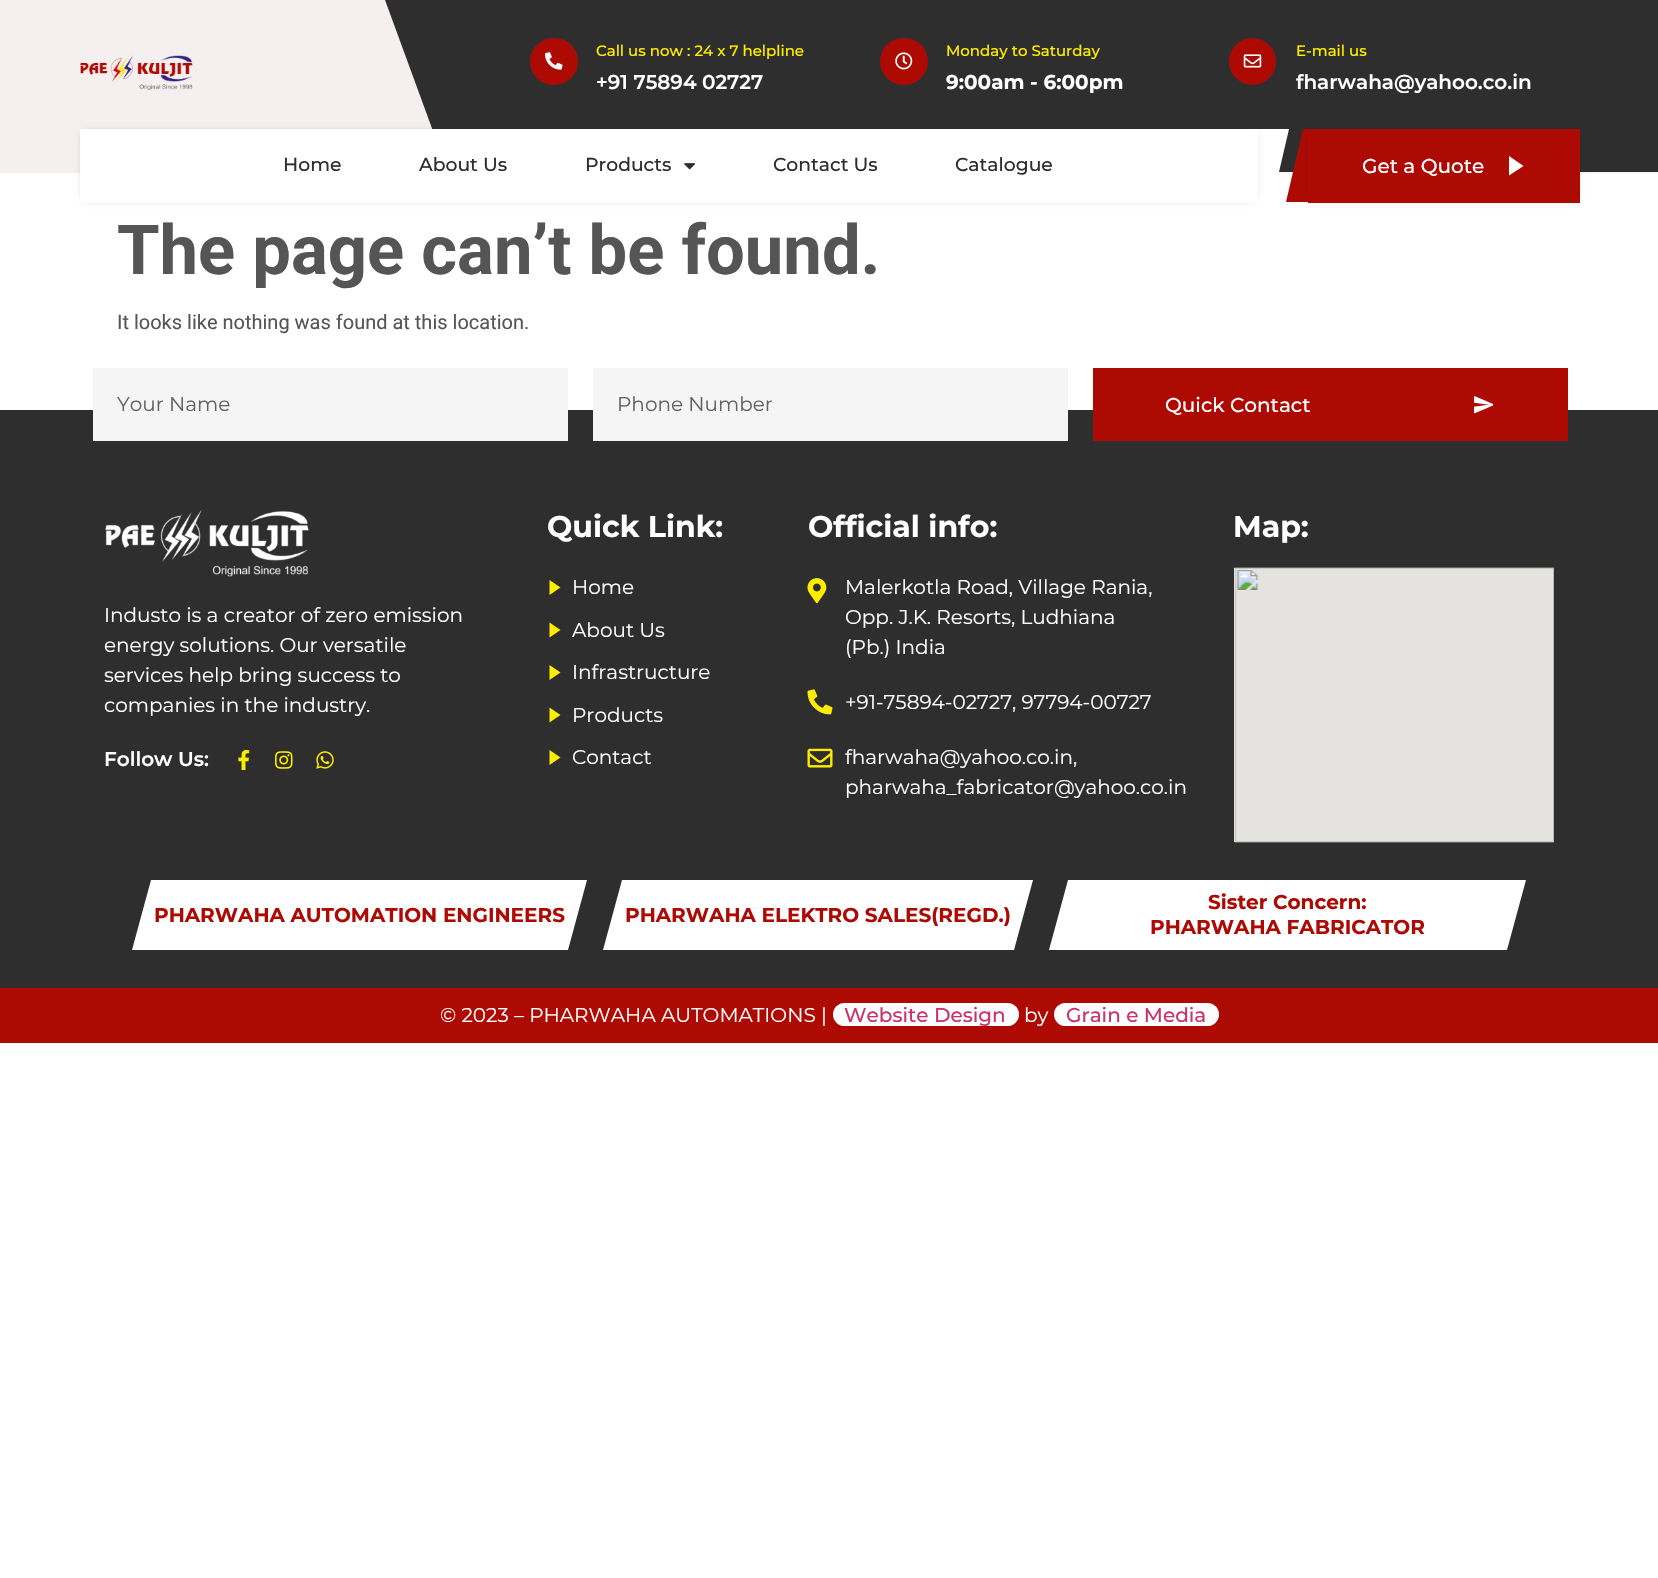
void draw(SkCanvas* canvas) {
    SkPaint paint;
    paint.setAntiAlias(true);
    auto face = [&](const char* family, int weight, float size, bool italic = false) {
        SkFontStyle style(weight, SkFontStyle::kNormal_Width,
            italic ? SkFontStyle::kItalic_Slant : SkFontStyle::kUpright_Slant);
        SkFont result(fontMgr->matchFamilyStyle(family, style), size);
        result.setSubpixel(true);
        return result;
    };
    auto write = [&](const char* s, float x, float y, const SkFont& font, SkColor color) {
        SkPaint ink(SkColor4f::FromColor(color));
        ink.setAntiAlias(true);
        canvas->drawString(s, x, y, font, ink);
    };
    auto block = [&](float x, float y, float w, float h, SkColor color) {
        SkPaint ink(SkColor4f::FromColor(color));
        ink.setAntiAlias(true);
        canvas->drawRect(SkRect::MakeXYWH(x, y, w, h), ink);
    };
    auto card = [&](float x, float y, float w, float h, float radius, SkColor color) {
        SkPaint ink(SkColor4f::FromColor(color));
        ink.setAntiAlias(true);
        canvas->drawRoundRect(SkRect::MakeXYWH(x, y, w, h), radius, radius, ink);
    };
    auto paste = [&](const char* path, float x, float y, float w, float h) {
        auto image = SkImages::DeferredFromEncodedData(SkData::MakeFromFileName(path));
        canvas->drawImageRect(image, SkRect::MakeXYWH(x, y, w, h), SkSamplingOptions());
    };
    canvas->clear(SK_ColorWHITE);
    block(0, 0, 1658, 173, SkColorSetRGB(245, 239, 239));
    paste("pic1.png", 80, 55, 113, 35);
    paint.setColor(SkColorSetRGB(46, 46, 46));
    canvas->drawPath(SkPathBuilder().moveTo(385, 0).lineTo(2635, 0).lineTo(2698, 172).lineTo(448, 172).close().detach(), paint);
    card(530, 38, 48, 47, 23.5f, SkColorSetRGB(173, 10, 4));
    paste("pic2.png", 545, 52, 18, 18);
    auto kFont1 = face("Montserrat", 500, 15);
    write("Call us now : 24 x 7 helpline", 596, 56, kFont1, SkColorSetRGB(255, 237, 0));
    auto kFont2 = face("Montserrat", 600, 20);
    write("+91 75894 02727", 596, 89, kFont2, SK_ColorWHITE);
    card(880, 38, 48, 47, 23.5f, SkColorSetRGB(173, 10, 4));
    paste("pic3.png", 895, 52, 18, 18);
    write("Monday to Saturday", 946, 56, kFont1, SkColorSetRGB(255, 237, 0));
    auto kFont3 = face("Montserrat", 700, 20);
    write("9:00am - 6:00pm", 946, 89, kFont3, SK_ColorWHITE);
    paint.setColor(SkColorSetRGB(173, 10, 4));
    canvas->drawCircle(1252.5f, 61.5f, 23.5f, paint);
    paste("pic4.png", 1243, 54, 19, 14);
    write("E-mail us", 1296, 56, kFont1, SkColorSetRGB(255, 237, 0));
    write("fharwaha@yahoo.co.in", 1296, 89, kFont2, SK_ColorWHITE);
    paint.setColor(SK_ColorWHITE);
    canvas->drawPath(SkPathBuilder().moveTo(112, 129).lineTo(1289, 129).lineTo(1272, 202).lineTo(95, 202).close().detach(), paint);
    paint.setColor(SkColorSetARGB(128, 0, 0, 0));
    paint.setMaskFilter(SkMaskFilter::MakeBlur(kNormal_SkBlurStyle, 4));
    canvas->drawRect(SkRect::MakeXYWH(85, 134, 1168, 64), paint);
    paint.setMaskFilter(nullptr);
    block(80, 129, 1178, 74, SK_ColorWHITE);
    auto kFont4 = face("Montserrat", 500, 18.75f);
    write("Home", 283, 171, kFont4, SkColorSetRGB(46, 46, 46));
    write("About Us", 419, 171, kFont4, SkColorSetRGB(46, 46, 46));
    write("Products", 585, 171, kFont4, SkColorSetRGB(46, 46, 46));
    paste("pic5.png", 684, 163, 11, 7);
    write("Contact Us", 773, 171, kFont4, SkColorSetRGB(46, 46, 46));
    write("Catalogue", 955, 171, kFont4, SkColorSetRGB(46, 46, 46));
    paint.setColor(SkColorSetRGB(173, 10, 4));
    canvas->drawPath(SkPathBuilder().moveTo(1303, 129).lineTo(1575, 129).lineTo(1558, 202).lineTo(1286, 202).close().detach(), paint);
    paint.setColor(SkColorSetARGB(128, 0, 0, 0));
    paint.setMaskFilter(SkMaskFilter::MakeBlur(kNormal_SkBlurStyle, 4));
    canvas->drawRect(SkRect::MakeXYWH(1313, 134, 262, 64), paint);
    paint.setMaskFilter(nullptr);
    block(1308, 129, 272, 74, SkColorSetRGB(173, 10, 4));
    auto kFont5 = face("Montserrat", 500, 20);
    write("Get a Quote", 1362, 173, kFont5, SK_ColorWHITE);
    paint.setColor(SK_ColorWHITE);
    canvas->drawPath(SkPathBuilder().moveTo(1509, 156).lineTo(1509, 175.5f).lineTo(1523.5f, 166).close().detach(), paint);
    auto kFont6 = face("Roboto", 700, 68.75f);
    write("The page can’t be found.", 117, 274, kFont6, SkColorSetRGB(85, 85, 85));
    auto kFont7 = face("Roboto", 400, 20);
    write("It looks like nothing was found at this location.", 117, 329, kFont7, SkColorSetRGB(85, 85, 85));
    block(0, 410, 1658, 578, SkColorSetRGB(46, 46, 46));
    block(93, 368, 475, 73, SkColorSetRGB(245, 245, 245));
    auto kFont8 = face("Montserrat", 400, 20);
    write("Your Name", 117, 411, kFont8, SkColorSetRGB(98, 98, 98));
    block(593, 368, 475, 73, SkColorSetRGB(245, 245, 245));
    write("Phone Number", 617, 411, kFont8, SkColorSetRGB(98, 98, 98));
    block(1093, 368, 475, 73, SkColorSetRGB(173, 10, 4));
    write("Quick Contact", 1165, 412, kFont5, SK_ColorWHITE);
    paste("pic6.png", 1474, 396, 20, 18);
    auto kFont9 = face("Montserrat", 700, 30);
    write("Quick Link:", 547, 537, kFont9, SK_ColorWHITE);
    paint.setColor(SkColorSetRGB(255, 237, 0));
    canvas->drawPath(SkPathBuilder().moveTo(549.5f, 580).lineTo(549.5f, 595).lineTo(560.5f, 587.5f).close().detach(), paint);
    write("Home", 572, 594, kFont8, SK_ColorWHITE);
    canvas->drawPath(SkPathBuilder().moveTo(549.5f, 622.5f).lineTo(549.5f, 637.5f).lineTo(560.5f, 630).close().detach(), paint);
    write("About Us", 572, 637, kFont8, SK_ColorWHITE);
    canvas->drawPath(SkPathBuilder().moveTo(549.5f, 665).lineTo(549.5f, 680).lineTo(560.5f, 672.5f).close().detach(), paint);
    write("Infrastructure", 572, 679, kFont8, SK_ColorWHITE);
    canvas->drawPath(SkPathBuilder().moveTo(549.5f, 707.5f).lineTo(549.5f, 722.5f).lineTo(560.5f, 715).close().detach(), paint);
    write("Products", 572, 722, kFont8, SK_ColorWHITE);
    canvas->drawPath(SkPathBuilder().moveTo(549.5f, 750).lineTo(549.5f, 765).lineTo(560.5f, 757.5f).close().detach(), paint);
    write("Contact", 572, 764, kFont8, SK_ColorWHITE);
    write("Official info:", 808, 537, kFont9, SK_ColorWHITE);
    paste("pic7.png", 807, 578, 20, 26);
    write("Malerkotla Road, Village Rania,", 845, 594, kFont8, SK_ColorWHITE);
    write("Opp. J.K. Resorts, Ludhiana", 845, 624, kFont8, SK_ColorWHITE);
    write("(Pb.) India", 845, 654, kFont8, SK_ColorWHITE);
    paste("pic8.png", 807, 689, 26, 26);
    write("+91-75894-02727, 97794-00727", 845, 709, kFont8, SK_ColorWHITE);
    paste("pic9.png", 807, 748, 26, 20);
    write("fharwaha@yahoo.co.in,", 845, 764, kFont8, SK_ColorWHITE);
    write("pharwaha_fabricator@yahoo.co.in", 845, 794, kFont8, SK_ColorWHITE);
    write("Map:", 1233, 537, kFont9, SK_ColorWHITE);
    paste("pic10.png", 1234, 567, 320, 276);
    paste("pic11.png", 105, 510, 204, 67);
    write("Industo is a creator of zero emission", 104, 622, kFont8, SK_ColorWHITE);
    write("energy solutions. Our versatile", 104, 652, kFont8, SK_ColorWHITE);
    write("services help bring success to", 104, 682, kFont8, SK_ColorWHITE);
    write("companies in the industry.", 104, 712, kFont8, SK_ColorWHITE);
    write("Follow Us:", 104, 766, kFont2, SK_ColorWHITE);
    paste("pic12.png", 238, 750, 12, 20);
    paste("pic13.png", 275, 751, 18, 18);
    paste("pic14.png", 316, 751, 18, 18);
    paint.setColor(SK_ColorWHITE);
    canvas->drawPath(SkPathBuilder().moveTo(151, 880).lineTo(587, 880).lineTo(568, 950).lineTo(132, 950).close().detach(), paint);
    write("PHARWAHA AUTOMATION ENGINEERS", 154, 922, kFont3, SkColorSetRGB(173, 10, 4));
    canvas->drawPath(SkPathBuilder().moveTo(622, 880).lineTo(1033, 880).lineTo(1014, 950).lineTo(603, 950).close().detach(), paint);
    write("PHARWAHA ELEKTRO SALES(REGD.)", 625, 922, kFont3, SkColorSetRGB(173, 10, 4));
    canvas->drawPath(SkPathBuilder().moveTo(1068, 880).lineTo(1526, 880).lineTo(1507, 950).lineTo(1049, 950).close().detach(), paint);
    write("Sister Concern:", 1208, 909, kFont3, SkColorSetRGB(173, 10, 4));
    write("PHARWAHA FABRICATOR", 1150, 934, kFont3, SkColorSetRGB(173, 10, 4));
    block(0, 988, 1658, 55, SkColorSetRGB(173, 10, 4));
    write("© 2023 – PHARWAHA AUTOMATIONS |", 440, 1022, kFont8, SK_ColorWHITE);
    card(833, 1003, 186, 23, 11.5f, SK_ColorWHITE);
    write("Website Design", 844, 1022, kFont5, SkColorSetRGB(204, 51, 102));
    write("by", 1024, 1022, kFont8, SK_ColorWHITE);
    card(1054, 1003, 165, 23, 11.5f, SK_ColorWHITE);
    write("Grain e Media", 1066, 1022, kFont5, SkColorSetRGB(204, 51, 102));
}
